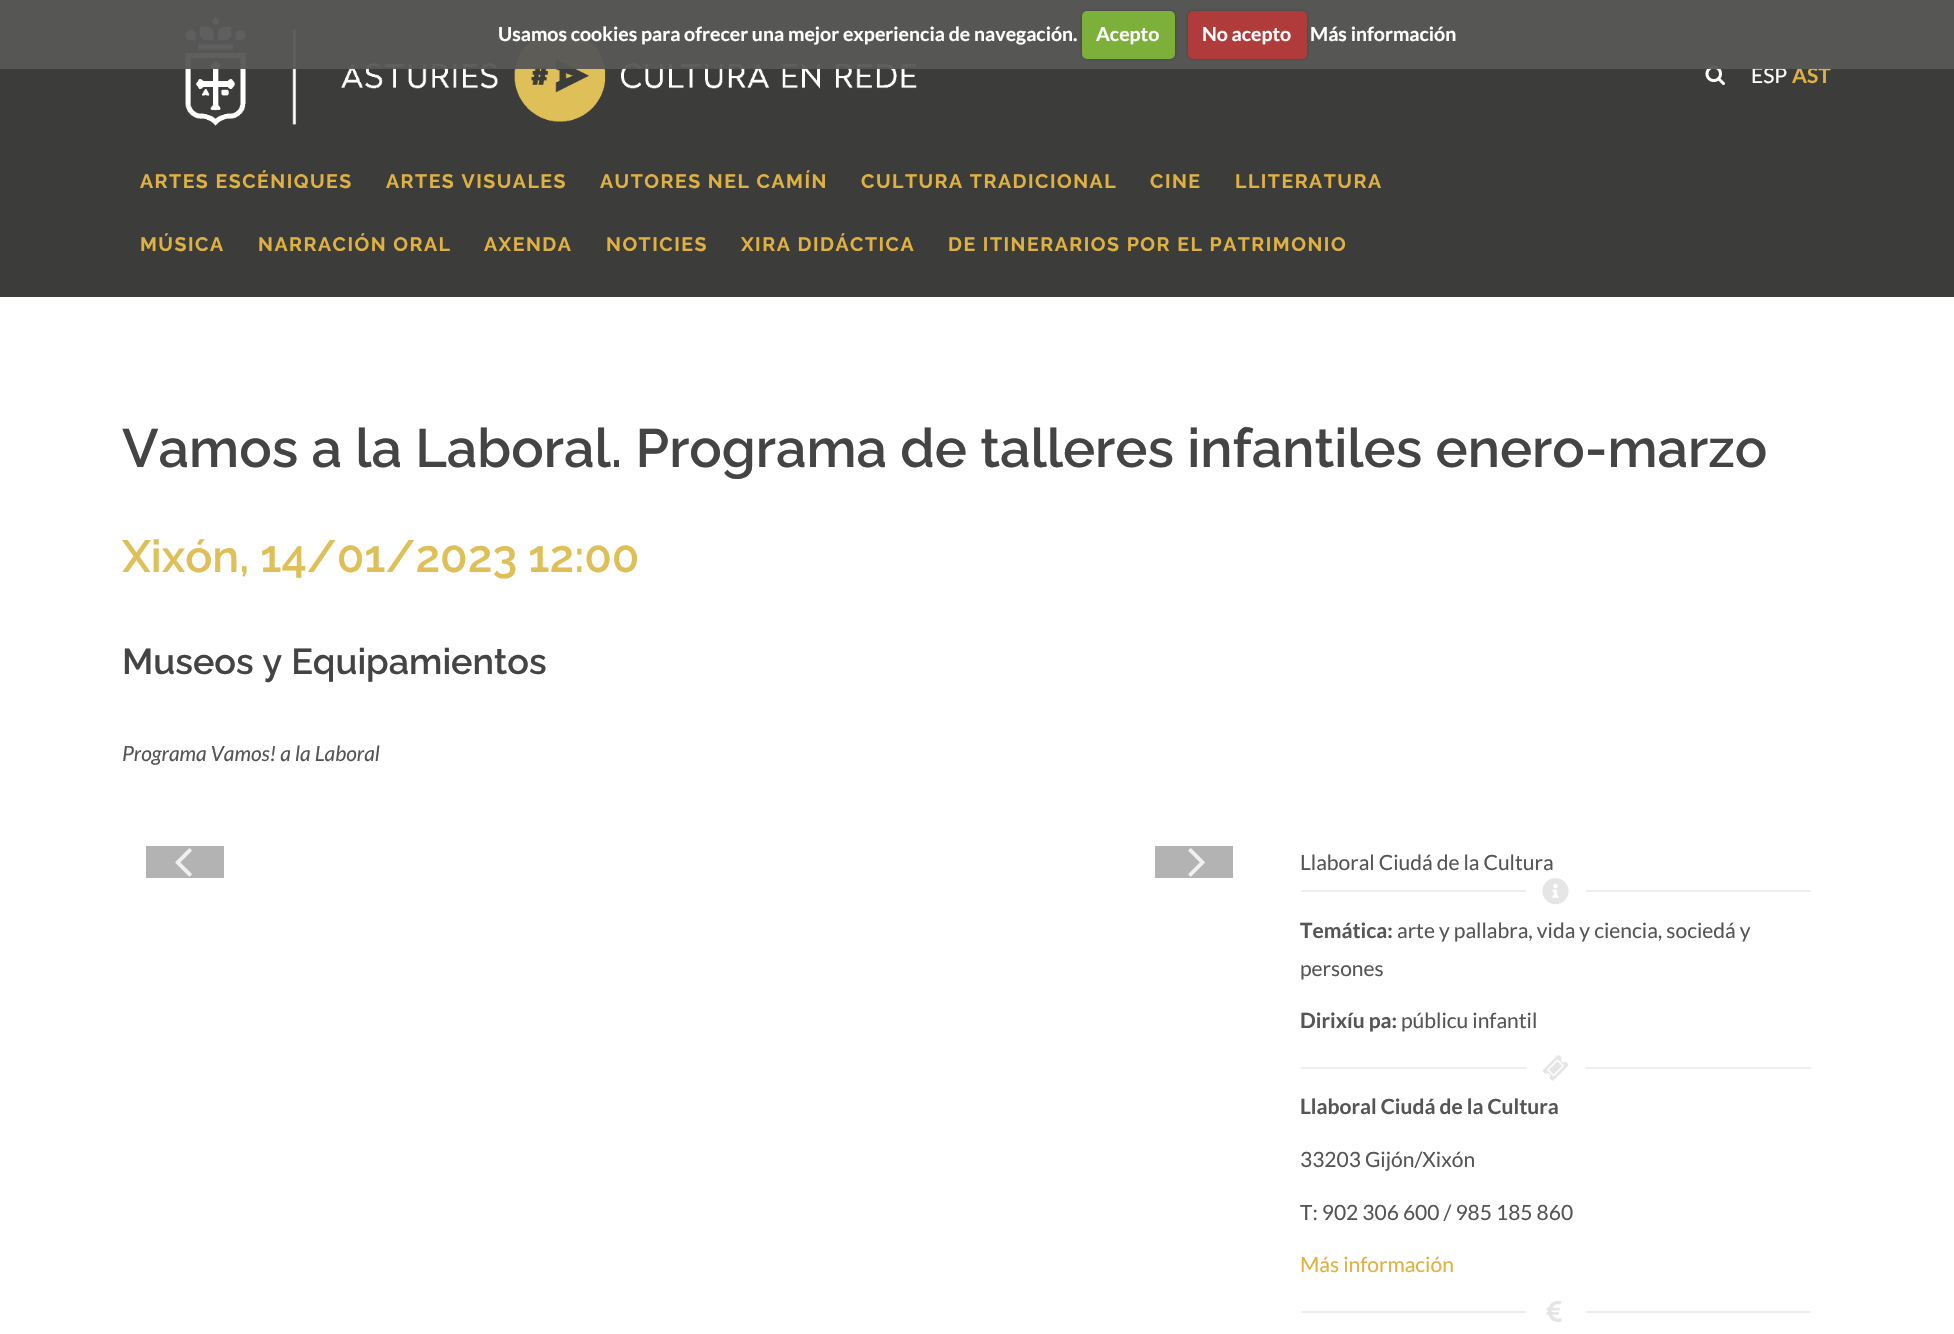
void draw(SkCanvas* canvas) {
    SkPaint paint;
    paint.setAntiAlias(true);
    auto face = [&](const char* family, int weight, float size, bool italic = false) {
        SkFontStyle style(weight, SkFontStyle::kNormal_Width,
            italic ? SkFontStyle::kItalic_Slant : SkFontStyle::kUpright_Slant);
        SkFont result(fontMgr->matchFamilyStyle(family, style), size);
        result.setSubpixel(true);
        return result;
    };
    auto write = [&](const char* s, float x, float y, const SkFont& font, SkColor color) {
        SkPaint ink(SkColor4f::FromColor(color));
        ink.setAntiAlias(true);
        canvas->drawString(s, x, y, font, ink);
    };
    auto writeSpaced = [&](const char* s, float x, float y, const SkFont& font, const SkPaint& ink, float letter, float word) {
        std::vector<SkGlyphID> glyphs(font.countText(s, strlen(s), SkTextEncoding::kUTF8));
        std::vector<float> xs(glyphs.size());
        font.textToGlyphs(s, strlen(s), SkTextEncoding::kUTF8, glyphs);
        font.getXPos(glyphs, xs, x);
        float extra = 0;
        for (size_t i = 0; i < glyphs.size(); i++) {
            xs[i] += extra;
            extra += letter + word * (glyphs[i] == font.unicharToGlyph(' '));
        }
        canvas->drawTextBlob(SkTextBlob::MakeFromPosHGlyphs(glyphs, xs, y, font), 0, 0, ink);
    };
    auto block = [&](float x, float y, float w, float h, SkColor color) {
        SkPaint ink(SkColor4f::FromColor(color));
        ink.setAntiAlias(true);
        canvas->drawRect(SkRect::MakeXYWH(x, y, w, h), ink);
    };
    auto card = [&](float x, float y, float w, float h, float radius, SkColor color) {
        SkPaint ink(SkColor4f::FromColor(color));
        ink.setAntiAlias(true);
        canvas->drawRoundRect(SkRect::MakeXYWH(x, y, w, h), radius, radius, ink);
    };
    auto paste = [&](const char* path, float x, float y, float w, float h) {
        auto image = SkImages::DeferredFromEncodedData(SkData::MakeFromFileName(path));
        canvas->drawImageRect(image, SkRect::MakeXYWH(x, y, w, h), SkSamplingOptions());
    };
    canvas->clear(SK_ColorWHITE);
    block(0, 0, 1954, 297, SkColorSetRGB(60, 60, 59));
    paste("pic1.png", 185, 17, 732, 109);
    paste("pic2.png", 1705, 65, 20, 21);
    auto kFont1 = face("Lato", 400, 21);
    write("ESP", 1751, 83, kFont1, SK_ColorWHITE);
    auto kFont2 = face("Lato", 700, 21);
    write("AST", 1792, 83, kFont2, SkColorSetRGB(222, 177, 66));
    block(0, 0, 1954, 69, SkColorSetARGB(242, 86, 86, 86));
    auto kFont3 = face("Lato", 700, 19.5f);
    write("Usamos cookies para ofrecer una mejor experiencia de navegación.", 498, 41, kFont3, SK_ColorWHITE);
    paint.setColor(SkColorSetARGB(64, 0, 0, 0));
    paint.setMaskFilter(SkMaskFilter::MakeBlur(kNormal_SkBlurStyle, 1.5f));
    canvas->drawRoundRect(SkRect::MakeXYWH(1082, 11, 93, 48), 5, 5, paint);
    paint.setMaskFilter(nullptr);
    card(1082, 11, 93, 48, 5, SkColorSetRGB(125, 175, 59));
    write("Acepto", 1096, 41, kFont3, SK_ColorWHITE);
    paint.setMaskFilter(SkMaskFilter::MakeBlur(kNormal_SkBlurStyle, 1.5f));
    canvas->drawRoundRect(SkRect::MakeXYWH(1188, 11, 119, 48), 5, 5, paint);
    paint.setMaskFilter(nullptr);
    card(1188, 11, 119, 48, 5, SkColorSetRGB(175, 59, 59));
    write("No acepto", 1202, 41, kFont3, SK_ColorWHITE);
    write("Más información", 1310, 41, kFont3, SK_ColorWHITE);
    auto kFont4 = face("Raleway", 700, 19.5f);
    paint.setColor(SkColorSetRGB(222, 177, 66));
    writeSpaced("ARTES ESCÉNIQUES", 140, 188, kFont4, paint, 1.5f, 0);
    writeSpaced("ARTES VISUALES", 386, 188, kFont4, paint, 1.5f, 0);
    writeSpaced("AUTORES NEL CAMÍN", 600, 188, kFont4, paint, 1.5f, 0);
    writeSpaced("CULTURA TRADICIONAL", 861, 188, kFont4, paint, 1.5f, 0);
    writeSpaced("CINE", 1150, 188, kFont4, paint, 1.5f, 0);
    writeSpaced("LLITERATURA", 1235, 188, kFont4, paint, 1.5f, 0);
    writeSpaced("MÚSICA", 140, 251, kFont4, paint, 1.5f, 0);
    writeSpaced("NARRACIÓN ORAL", 258, 251, kFont4, paint, 1.5f, 0);
    writeSpaced("AXENDA", 484, 251, kFont4, paint, 1.5f, 0);
    writeSpaced("NOTICIES", 606, 251, kFont4, paint, 1.5f, 0);
    writeSpaced("XIRA DIDÁCTICA", 741, 251, kFont4, paint, 1.5f, 0);
    writeSpaced("DE ITINERARIOS POR EL PATRIMONIO", 948, 251, kFont4, paint, 1.5f, 0);
    auto kFont5 = face("Raleway", 600, 54);
    write("Vamos a la Laboral. Programa de talleres infantiles enero-marzo", 122, 467, kFont5, SkColorSetRGB(68, 68, 68));
    auto kFont6 = face("Raleway", 600, 45);
    write("Xixón, 14/01/2023 12:00", 122, 572, kFont6, SkColorSetRGB(223, 191, 88));
    auto kFont7 = face("Raleway", 600, 36);
    write("Museos y Equipamientos", 122, 674, kFont7, SkColorSetRGB(68, 68, 68));
    auto kFont8 = face("Lato", 400, 21, true);
    write("Programa Vamos! a la Laboral", 122, 761, kFont8, SkColorSetRGB(85, 85, 85));
    block(146, 846, 78, 32, SkColorSetRGB(179, 179, 179));
    paste("pic3.png", 175, 848, 17, 29);
    block(1155, 846, 78, 32, SkColorSetRGB(179, 179, 179));
    paste("pic4.png", 1188, 848, 17, 29);
    write("Llaboral Ciudá de la Cultura", 1300, 870, kFont1, SkColorSetRGB(85, 85, 85));
    block(1301, 890, 225, 2, SkColorSetRGB(238, 238, 238));
    paste("pic5.png", 1542, 878, 27, 27);
    block(1586, 890, 225, 2, SkColorSetRGB(238, 238, 238));
    write("Temática:", 1300, 938, kFont2, SkColorSetRGB(85, 85, 85));
    write("arte y pallabra, vida y ciencia, sociedá y", 1397, 938, kFont1, SkColorSetRGB(85, 85, 85));
    write("persones", 1300, 976, kFont1, SkColorSetRGB(85, 85, 85));
    write("Dirixíu pa:", 1300, 1028, kFont2, SkColorSetRGB(85, 85, 85));
    write("públicu infantil", 1401, 1028, kFont1, SkColorSetRGB(85, 85, 85));
    block(1301, 1067, 225, 2, SkColorSetRGB(238, 238, 238));
    paste("pic6.png", 1543, 1055, 25, 26);
    block(1586, 1067, 225, 2, SkColorSetRGB(238, 238, 238));
    write("Llaboral Ciudá de la Cultura", 1300, 1114, kFont2, SkColorSetRGB(85, 85, 85));
    write("33203 Gijón/Xixón", 1300, 1167, kFont1, SkColorSetRGB(85, 85, 85));
    write("T: 902 306 600 / 985 185 860", 1300, 1220, kFont1, SkColorSetRGB(85, 85, 85));
    write("Más información", 1300, 1272, kFont1, SkColorSetRGB(222, 177, 66));
    block(1301, 1311, 225, 2, SkColorSetRGB(238, 238, 238));
    paste("pic7.png", 1546, 1300, 16, 22);
    block(1586, 1311, 225, 2, SkColorSetRGB(238, 238, 238));
}
